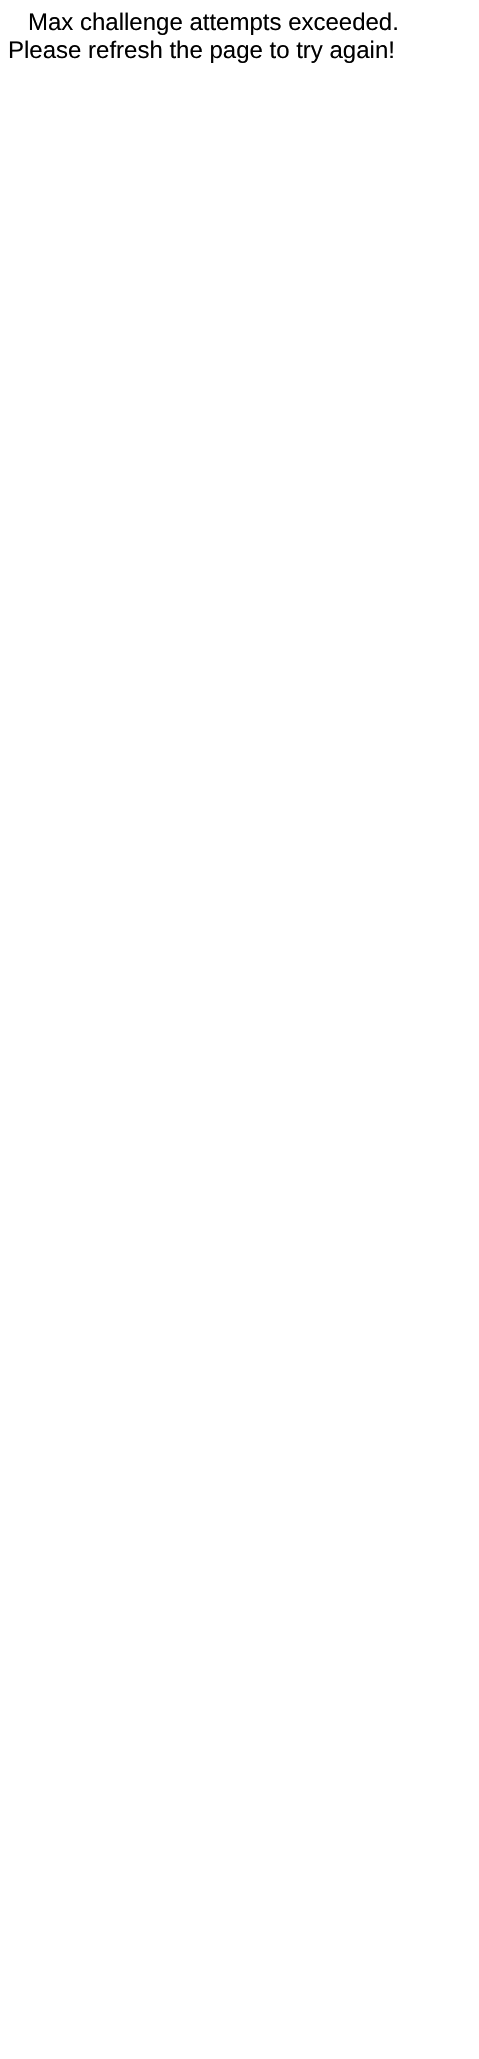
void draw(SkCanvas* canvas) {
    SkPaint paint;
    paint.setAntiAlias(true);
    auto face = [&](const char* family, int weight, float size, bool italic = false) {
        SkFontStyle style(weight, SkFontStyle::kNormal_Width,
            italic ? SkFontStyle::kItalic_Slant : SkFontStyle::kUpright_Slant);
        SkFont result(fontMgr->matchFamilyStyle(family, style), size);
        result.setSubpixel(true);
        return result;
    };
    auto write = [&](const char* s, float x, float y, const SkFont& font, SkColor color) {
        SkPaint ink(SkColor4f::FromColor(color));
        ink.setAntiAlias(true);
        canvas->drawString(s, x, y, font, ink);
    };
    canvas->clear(SK_ColorWHITE);
    auto kFont1 = face("Liberation Sans", 400, 24);
    write("Max challenge attempts exceeded.", 28, 30, kFont1, SK_ColorBLACK);
    write("Please refresh the page to try again!", 8, 58, kFont1, SK_ColorBLACK);
}
